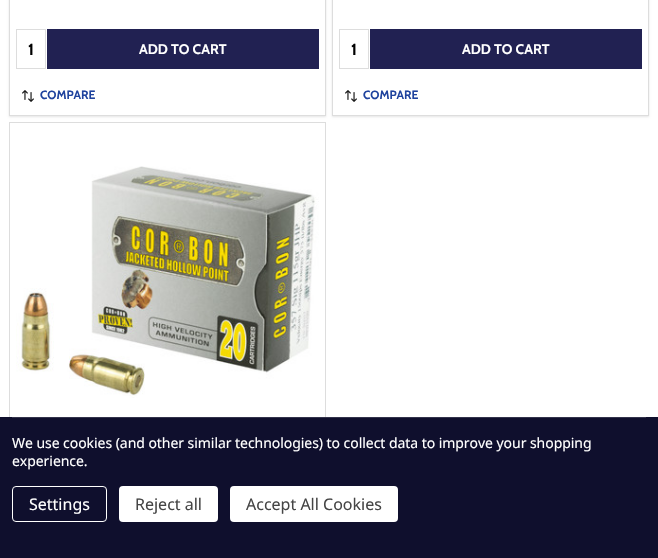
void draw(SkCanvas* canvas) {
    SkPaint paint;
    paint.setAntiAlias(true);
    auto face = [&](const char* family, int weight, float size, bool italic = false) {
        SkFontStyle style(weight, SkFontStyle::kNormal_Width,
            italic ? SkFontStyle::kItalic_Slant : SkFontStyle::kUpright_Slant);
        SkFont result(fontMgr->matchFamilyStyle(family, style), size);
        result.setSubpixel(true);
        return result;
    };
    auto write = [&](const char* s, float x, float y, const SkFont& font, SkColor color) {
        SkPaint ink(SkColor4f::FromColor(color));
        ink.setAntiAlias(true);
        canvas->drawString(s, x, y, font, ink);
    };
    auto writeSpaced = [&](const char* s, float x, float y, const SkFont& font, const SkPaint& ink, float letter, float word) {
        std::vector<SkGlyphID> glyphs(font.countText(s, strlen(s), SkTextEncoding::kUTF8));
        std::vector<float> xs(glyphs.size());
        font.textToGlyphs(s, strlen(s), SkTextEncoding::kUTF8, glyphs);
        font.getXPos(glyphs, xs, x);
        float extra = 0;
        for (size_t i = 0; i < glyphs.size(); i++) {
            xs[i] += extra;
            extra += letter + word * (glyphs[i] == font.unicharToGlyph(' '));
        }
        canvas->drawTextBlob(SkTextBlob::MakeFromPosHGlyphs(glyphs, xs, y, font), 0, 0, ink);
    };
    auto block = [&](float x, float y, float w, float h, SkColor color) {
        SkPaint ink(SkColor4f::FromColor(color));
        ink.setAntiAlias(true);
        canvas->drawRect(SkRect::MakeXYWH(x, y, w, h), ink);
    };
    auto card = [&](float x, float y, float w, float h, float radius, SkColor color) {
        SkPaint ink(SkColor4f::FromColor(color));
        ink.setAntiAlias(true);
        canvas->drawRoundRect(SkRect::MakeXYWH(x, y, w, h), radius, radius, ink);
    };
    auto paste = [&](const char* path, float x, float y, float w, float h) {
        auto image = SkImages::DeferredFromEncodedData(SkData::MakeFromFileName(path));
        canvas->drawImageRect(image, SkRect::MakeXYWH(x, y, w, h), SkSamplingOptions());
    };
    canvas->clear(SK_ColorWHITE);
    canvas->save();
    canvas->clipPath(SkPathBuilder(SkPathFillType::kEvenOdd).moveTo(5, 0).lineTo(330, 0).lineTo(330, 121).lineTo(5, 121).close().moveTo(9, -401).lineTo(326, -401).lineTo(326, 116).lineTo(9, 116).close().detach(), true);
    paint.setColor(SkColorSetARGB(26, 0, 0, 0));
    paint.setMaskFilter(SkMaskFilter::MakeBlur(kNormal_SkBlurStyle, 1));
    canvas->drawRect(SkRect::MakeXYWH(9, -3, 317, 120), paint);
    paint.setMaskFilter(nullptr);
    canvas->restore();
    paint.setStyle(SkPaint::kStroke_Style);
    paint.setStrokeWidth(1);
    paint.setColor(SkColorSetRGB(221, 221, 221));
    canvas->drawRect(SkRect::MakeXYWH(9.5f, -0.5f, 316, 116), paint);
    canvas->drawRect(SkRect::MakeXYWH(16.5f, 29.5f, 29, 39), paint);
    auto kFont1 = face("Cabin", 700, 16);
    write("1", 28, 55, kFont1, SK_ColorBLACK);
    block(47, 29, 272, 40, SkColorSetRGB(33, 33, 82));
    auto kFont2 = face("Cabin", 700, 14);
    write("ADD TO CART", 139, 54, kFont2, SK_ColorWHITE);
    paste("pic1.png", 22, 90, 12, 12);
    auto kFont3 = face("Cabin", 700, 12);
    write("COMPARE", 40, 99, kFont3, SkColorSetRGB(31, 67, 158));
    canvas->save();
    canvas->clipPath(SkPathBuilder(SkPathFillType::kEvenOdd).moveTo(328, 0).lineTo(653, 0).lineTo(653, 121).lineTo(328, 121).close().moveTo(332, -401).lineTo(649, -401).lineTo(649, 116).lineTo(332, 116).close().detach(), true);
    paint.setStyle(SkPaint::kFill_Style);
    paint.setColor(SkColorSetARGB(26, 0, 0, 0));
    paint.setMaskFilter(SkMaskFilter::MakeBlur(kNormal_SkBlurStyle, 1));
    canvas->drawRect(SkRect::MakeXYWH(332, -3, 317, 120), paint);
    paint.setMaskFilter(nullptr);
    canvas->restore();
    paint.setStyle(SkPaint::kStroke_Style);
    paint.setColor(SkColorSetRGB(221, 221, 221));
    canvas->drawRect(SkRect::MakeXYWH(332.5f, -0.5f, 316, 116), paint);
    canvas->drawRect(SkRect::MakeXYWH(339.5f, 29.5f, 29, 39), paint);
    write("1", 351, 55, kFont1, SK_ColorBLACK);
    block(370, 29, 272, 40, SkColorSetRGB(33, 33, 82));
    write("ADD TO CART", 462, 54, kFont2, SK_ColorWHITE);
    paste("pic1.png", 345, 90, 12, 12);
    write("COMPARE", 363, 99, kFont3, SkColorSetRGB(31, 67, 158));
    canvas->drawRect(SkRect::MakeXYWH(9.5f, 122.5f, 316, 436), paint);
    paste("pic2.png", 16, 166, 303, 232);
    block(0, 417, 658, 141, SkColorSetRGB(15, 15, 45));
    block(12, 417, 634, 1, SkColorSetRGB(51, 51, 75));
    auto kFont4 = face("Noto Sans", 400, 14);
    paint.setStyle(SkPaint::kFill_Style);
    paint.setColor(SK_ColorWHITE);
    writeSpaced("We use cookies (and other similar technologies) to collect data to improve your shopping", 12, 448, kFont4, paint, -0.05f, 0);
    writeSpaced("experience.", 12, 466, kFont4, paint, -0.05f, 0);
    paint.setStyle(SkPaint::kStroke_Style);
    canvas->drawRoundRect(SkRect::MakeXYWH(12.5f, 486.5f, 94, 35), 3.5f, 3.5f, paint);
    auto kFont5 = face("Noto Sans", 400, 16);
    write("Settings", 29, 510, kFont5, SK_ColorWHITE);
    card(119, 486, 99, 36, 4, SK_ColorWHITE);
    write("Reject all", 135, 510, kFont5, SkColorSetRGB(69, 69, 69));
    card(230, 486, 168, 36, 4, SK_ColorWHITE);
    write("Accept All Cookies", 246, 510, kFont5, SkColorSetRGB(69, 69, 69));
}
